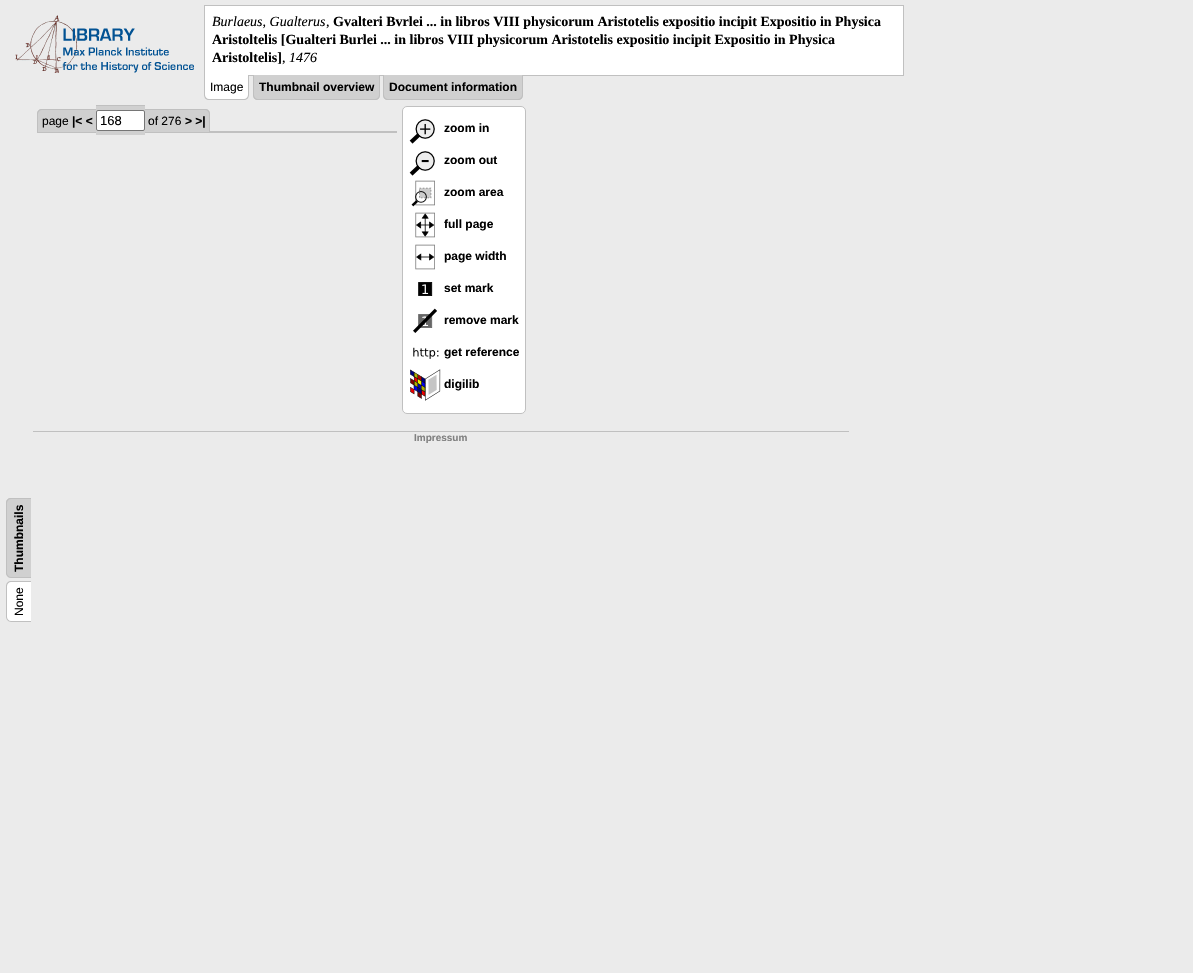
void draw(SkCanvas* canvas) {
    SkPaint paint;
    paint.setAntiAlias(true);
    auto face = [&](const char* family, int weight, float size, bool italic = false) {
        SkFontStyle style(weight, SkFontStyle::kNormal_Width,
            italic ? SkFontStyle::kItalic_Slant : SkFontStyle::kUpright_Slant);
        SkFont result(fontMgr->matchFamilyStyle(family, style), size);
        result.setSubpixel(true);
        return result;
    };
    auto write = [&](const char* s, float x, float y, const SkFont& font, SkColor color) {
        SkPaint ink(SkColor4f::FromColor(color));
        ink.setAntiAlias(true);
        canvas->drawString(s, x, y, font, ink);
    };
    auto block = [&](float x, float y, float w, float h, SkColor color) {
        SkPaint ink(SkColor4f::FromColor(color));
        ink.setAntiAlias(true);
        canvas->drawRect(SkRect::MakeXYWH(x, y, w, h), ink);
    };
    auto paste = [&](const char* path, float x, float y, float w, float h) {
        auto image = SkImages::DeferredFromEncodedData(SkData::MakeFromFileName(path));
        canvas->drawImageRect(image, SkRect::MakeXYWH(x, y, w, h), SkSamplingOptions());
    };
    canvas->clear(SkColorSetRGB(235, 235, 235));
    paste("pic1.png", 15, 15, 179, 58);
    paint.setColor(SK_ColorWHITE);
    canvas->drawRect(SkRect::MakeXYWH(204.5f, 5.5f, 699, 70), paint);
    paint.setStyle(SkPaint::kStroke_Style);
    paint.setStrokeWidth(1);
    paint.setColor(SkColorSetRGB(192, 192, 192));
    canvas->drawRect(SkRect::MakeXYWH(204.5f, 5.5f, 699, 70), paint);
    auto kFont1 = face("Liberation Serif", 400, 14, true);
    write("Burlaeus, Gualterus", 212, 26, kFont1, SK_ColorBLACK);
    auto kFont2 = face("Liberation Serif", 400, 14);
    write(",", 326, 26, kFont2, SK_ColorBLACK);
    auto kFont3 = face("Liberation Serif", 700, 14);
    write("Gvalteri Bvrlei ... in libros VIII physicorum Aristotelis expositio incipit Expositio in Physica", 333, 26, kFont3, SK_ColorBLACK);
    write("Aristoltelis [Gualteri Burlei ... in libros VIII physicorum Aristotelis expositio incipit Expositio in Physica", 212, 44, kFont3, SK_ColorBLACK);
    write("Aristoltelis]", 212, 62, kFont3, SK_ColorBLACK);
    write(",", 282, 62, kFont2, SK_ColorBLACK);
    write("1476", 289, 62, kFont1, SK_ColorBLACK);
    paint.setStyle(SkPaint::kFill_Style);
    paint.setColor(SK_ColorWHITE);
    canvas->drawPath(SkPathBuilder().moveTo(204, 75).lineTo(249, 75).lineTo(249, 95).cubicTo(249, 98, 247, 100, 244, 100).lineTo(209, 100).cubicTo(206, 100, 204, 98, 204, 95).close().detach(), paint);
    paint.setColor(SkColorSetRGB(192, 192, 192));
    canvas->drawPath(SkPathBuilder(SkPathFillType::kEvenOdd).moveTo(204, 75).lineTo(249, 75).lineTo(249, 95).cubicTo(249, 98, 247, 100, 244, 100).lineTo(209, 100).cubicTo(206, 100, 204, 98, 204, 95).close().moveTo(205, 75).lineTo(248, 75).lineTo(248, 95).cubicTo(248, 97, 246, 99, 244, 99).lineTo(209, 99).cubicTo(207, 99, 205, 97, 205, 95).close().detach(), paint);
    auto kFont4 = face("Liberation Sans", 400, 12);
    write("Image", 210, 91, kFont4, SK_ColorBLACK);
    paint.setColor(SkColorSetRGB(208, 208, 208));
    canvas->drawPath(SkPathBuilder().moveTo(253, 75).lineTo(380, 75).lineTo(380, 95).cubicTo(380, 98, 378, 100, 375, 100).lineTo(258, 100).cubicTo(255, 100, 253, 98, 253, 95).close().detach(), paint);
    paint.setColor(SkColorSetRGB(192, 192, 192));
    canvas->drawPath(SkPathBuilder(SkPathFillType::kEvenOdd).moveTo(253, 75).lineTo(380, 75).lineTo(380, 95).cubicTo(380, 98, 378, 100, 375, 100).lineTo(258, 100).cubicTo(255, 100, 253, 98, 253, 95).close().moveTo(254, 75).lineTo(379, 75).lineTo(379, 95).cubicTo(379, 97, 377, 99, 375, 99).lineTo(258, 99).cubicTo(256, 99, 254, 97, 254, 95).close().detach(), paint);
    auto kFont5 = face("Liberation Sans", 700, 12);
    write("Thumbnail overview", 259, 91, kFont5, SK_ColorBLACK);
    paint.setColor(SkColorSetRGB(208, 208, 208));
    canvas->drawPath(SkPathBuilder().moveTo(383, 75).lineTo(523, 75).lineTo(523, 95).cubicTo(523, 98, 521, 100, 518, 100).lineTo(388, 100).cubicTo(385, 100, 383, 98, 383, 95).close().detach(), paint);
    paint.setColor(SkColorSetRGB(192, 192, 192));
    canvas->drawPath(SkPathBuilder(SkPathFillType::kEvenOdd).moveTo(383, 75).lineTo(523, 75).lineTo(523, 95).cubicTo(523, 98, 521, 100, 518, 100).lineTo(388, 100).cubicTo(385, 100, 383, 98, 383, 95).close().moveTo(384, 75).lineTo(522, 75).lineTo(522, 95).cubicTo(522, 97, 520, 99, 518, 99).lineTo(388, 99).cubicTo(386, 99, 384, 97, 384, 95).close().detach(), paint);
    write("Document information", 389, 91, kFont5, SK_ColorBLACK);
    block(37, 131, 360, 2, SkColorSetRGB(192, 192, 192));
    paint.setColor(SkColorSetRGB(208, 208, 208));
    canvas->drawPath(SkPathBuilder().moveTo(42, 109).lineTo(72, 109).lineTo(72, 132).lineTo(37, 132).lineTo(37, 114).cubicTo(37, 111, 39, 109, 42, 109).close().detach(), paint);
    paint.setColor(SkColorSetRGB(192, 192, 192));
    canvas->drawPath(SkPathBuilder(SkPathFillType::kEvenOdd).moveTo(42, 109).lineTo(72, 109).lineTo(72, 132).lineTo(37, 132).lineTo(37, 114).cubicTo(37, 111, 39, 109, 42, 109).close().moveTo(42, 110).lineTo(72, 110).lineTo(72, 132).lineTo(38, 132).lineTo(38, 114).cubicTo(38, 112, 40, 110, 42, 110).close().detach(), paint);
    block(72, 110, 10, 22, SkColorSetRGB(208, 208, 208));
    block(72, 109, 10, 1, SkColorSetRGB(192, 192, 192));
    block(82, 109, 14, 23, SkColorSetRGB(208, 208, 208));
    block(82, 109, 14, 1, SkColorSetRGB(192, 192, 192));
    block(96, 106, 49, 29, SkColorSetRGB(208, 208, 208));
    block(96, 105, 49, 1, SkColorSetRGB(192, 192, 192));
    block(145, 109, 3, 23, SkColorSetRGB(208, 208, 208));
    block(145, 109, 40, 1, SkColorSetRGB(192, 192, 192));
    block(148, 110, 37, 22, SkColorSetRGB(208, 208, 208));
    block(185, 109, 10, 23, SkColorSetRGB(208, 208, 208));
    block(185, 109, 10, 1, SkColorSetRGB(192, 192, 192));
    paint.setColor(SkColorSetRGB(208, 208, 208));
    canvas->drawPath(SkPathBuilder().moveTo(195, 109).lineTo(205, 109).cubicTo(208, 109, 210, 111, 210, 114).lineTo(210, 132).lineTo(195, 132).close().detach(), paint);
    paint.setColor(SkColorSetRGB(192, 192, 192));
    canvas->drawPath(SkPathBuilder(SkPathFillType::kEvenOdd).moveTo(195, 109).lineTo(205, 109).cubicTo(208, 109, 210, 111, 210, 114).lineTo(210, 132).lineTo(195, 132).close().moveTo(195, 110).lineTo(205, 110).cubicTo(207, 110, 209, 112, 209, 114).lineTo(209, 132).lineTo(195, 132).close().detach(), paint);
    write("page", 42, 125, kFont4, SK_ColorBLACK);
    write("|< <", 72, 125, kFont5, SK_ColorBLACK);
    paint.setColor(SK_ColorWHITE);
    canvas->drawRoundRect(SkRect::MakeXYWH(96.5f, 110.5f, 48, 20), 1.5f, 1.5f, paint);
    paint.setStyle(SkPaint::kStroke_Style);
    paint.setColor(SkColorSetRGB(118, 118, 118));
    canvas->drawRoundRect(SkRect::MakeXYWH(96.5f, 110.5f, 48, 20), 1.5f, 1.5f, paint);
    auto kFont6 = face("Liberation Sans", 400, 13);
    write("168", 100, 125, kFont6, SK_ColorBLACK);
    write("of 276", 148, 125, kFont4, SK_ColorBLACK);
    write("> >|", 185, 125, kFont5, SK_ColorBLACK);
    paint.setStyle(SkPaint::kFill_Style);
    paint.setColor(SK_ColorWHITE);
    canvas->drawRoundRect(SkRect::MakeXYWH(402.5f, 106.5f, 123, 307), 4.5f, 4.5f, paint);
    paint.setStyle(SkPaint::kStroke_Style);
    paint.setColor(SkColorSetRGB(192, 192, 192));
    canvas->drawRoundRect(SkRect::MakeXYWH(402.5f, 106.5f, 123, 307), 4.5f, 4.5f, paint);
    paste("pic2.png", 409, 119, 26, 25);
    write("zoom in", 444, 132, kFont5, SK_ColorBLACK);
    paste("pic3.png", 409, 151, 26, 25);
    write("zoom out", 444, 164, kFont5, SK_ColorBLACK);
    paste("pic4.png", 411, 180, 24, 27);
    write("zoom area", 444, 196, kFont5, SK_ColorBLACK);
    paste("pic5.png", 415, 212, 20, 26);
    write("full page", 444, 228, kFont5, SK_ColorBLACK);
    paste("pic6.png", 415, 244, 20, 26);
    write("page width", 444, 260, kFont5, SK_ColorBLACK);
    paste("pic7.png", 418, 282, 15, 14);
    write("set mark", 444, 292, kFont5, SK_ColorBLACK);
    paste("pic8.png", 413, 308, 24, 25);
    write("remove mark", 444, 324, kFont5, SK_ColorBLACK);
    paste("pic9.png", 413, 347, 26, 12);
    write("get reference", 444, 356, kFont5, SK_ColorBLACK);
    paste("pic10.png", 410, 369, 31, 32);
    write("digilib", 444, 388, kFont5, SK_ColorBLACK);
    paint.setStyle(SkPaint::kFill_Style);
    paint.setColor(SkColorSetRGB(208, 208, 208));
    canvas->drawPath(SkPathBuilder().moveTo(6, 573).lineTo(6, 503).cubicTo(6, 500, 8, 498, 11, 498).lineTo(31, 498).lineTo(31, 578).lineTo(11, 578).cubicTo(8, 578, 6, 575, 6, 573).close().detach(), paint);
    paint.setColor(SkColorSetRGB(192, 192, 192));
    canvas->drawPath(SkPathBuilder(SkPathFillType::kEvenOdd).moveTo(6, 573).lineTo(6, 503).cubicTo(6, 500, 8, 498, 11, 498).lineTo(31, 498).lineTo(31, 578).lineTo(11, 578).cubicTo(8, 578, 6, 575, 6, 573).close().moveTo(7, 573).lineTo(7, 503).cubicTo(7, 501, 9, 499, 11, 499).lineTo(31, 499).lineTo(31, 577).lineTo(11, 577).cubicTo(9, 577, 7, 575, 7, 573).close().detach(), paint);
    canvas->save();
    canvas->rotate(-90, 23, 572);
    write("Thumbnails", 23, 572, kFont5, SK_ColorBLACK);
    canvas->restore();
    paint.setColor(SK_ColorWHITE);
    canvas->drawPath(SkPathBuilder().moveTo(6, 617).lineTo(6, 586).cubicTo(6, 583, 8, 581, 11, 581).lineTo(31, 581).lineTo(31, 622).lineTo(11, 622).cubicTo(8, 622, 6, 619, 6, 617).close().detach(), paint);
    paint.setColor(SkColorSetRGB(192, 192, 192));
    canvas->drawPath(SkPathBuilder(SkPathFillType::kEvenOdd).moveTo(6, 617).lineTo(6, 586).cubicTo(6, 583, 8, 581, 11, 581).lineTo(31, 581).lineTo(31, 622).lineTo(11, 622).cubicTo(8, 622, 6, 619, 6, 617).close().moveTo(7, 617).lineTo(7, 586).cubicTo(7, 584, 9, 582, 11, 582).lineTo(31, 582).lineTo(31, 621).lineTo(11, 621).cubicTo(9, 621, 7, 619, 7, 617).close().detach(), paint);
    canvas->save();
    canvas->rotate(-90, 23, 616);
    write("None", 23, 616, kFont4, SK_ColorBLACK);
    canvas->restore();
    block(33, 431, 816, 1, SkColorSetRGB(192, 192, 192));
    auto kFont7 = face("Liberation Sans", 700, 10);
    write("Impressum", 414, 441, kFont7, SkColorSetRGB(128, 128, 128));
}
